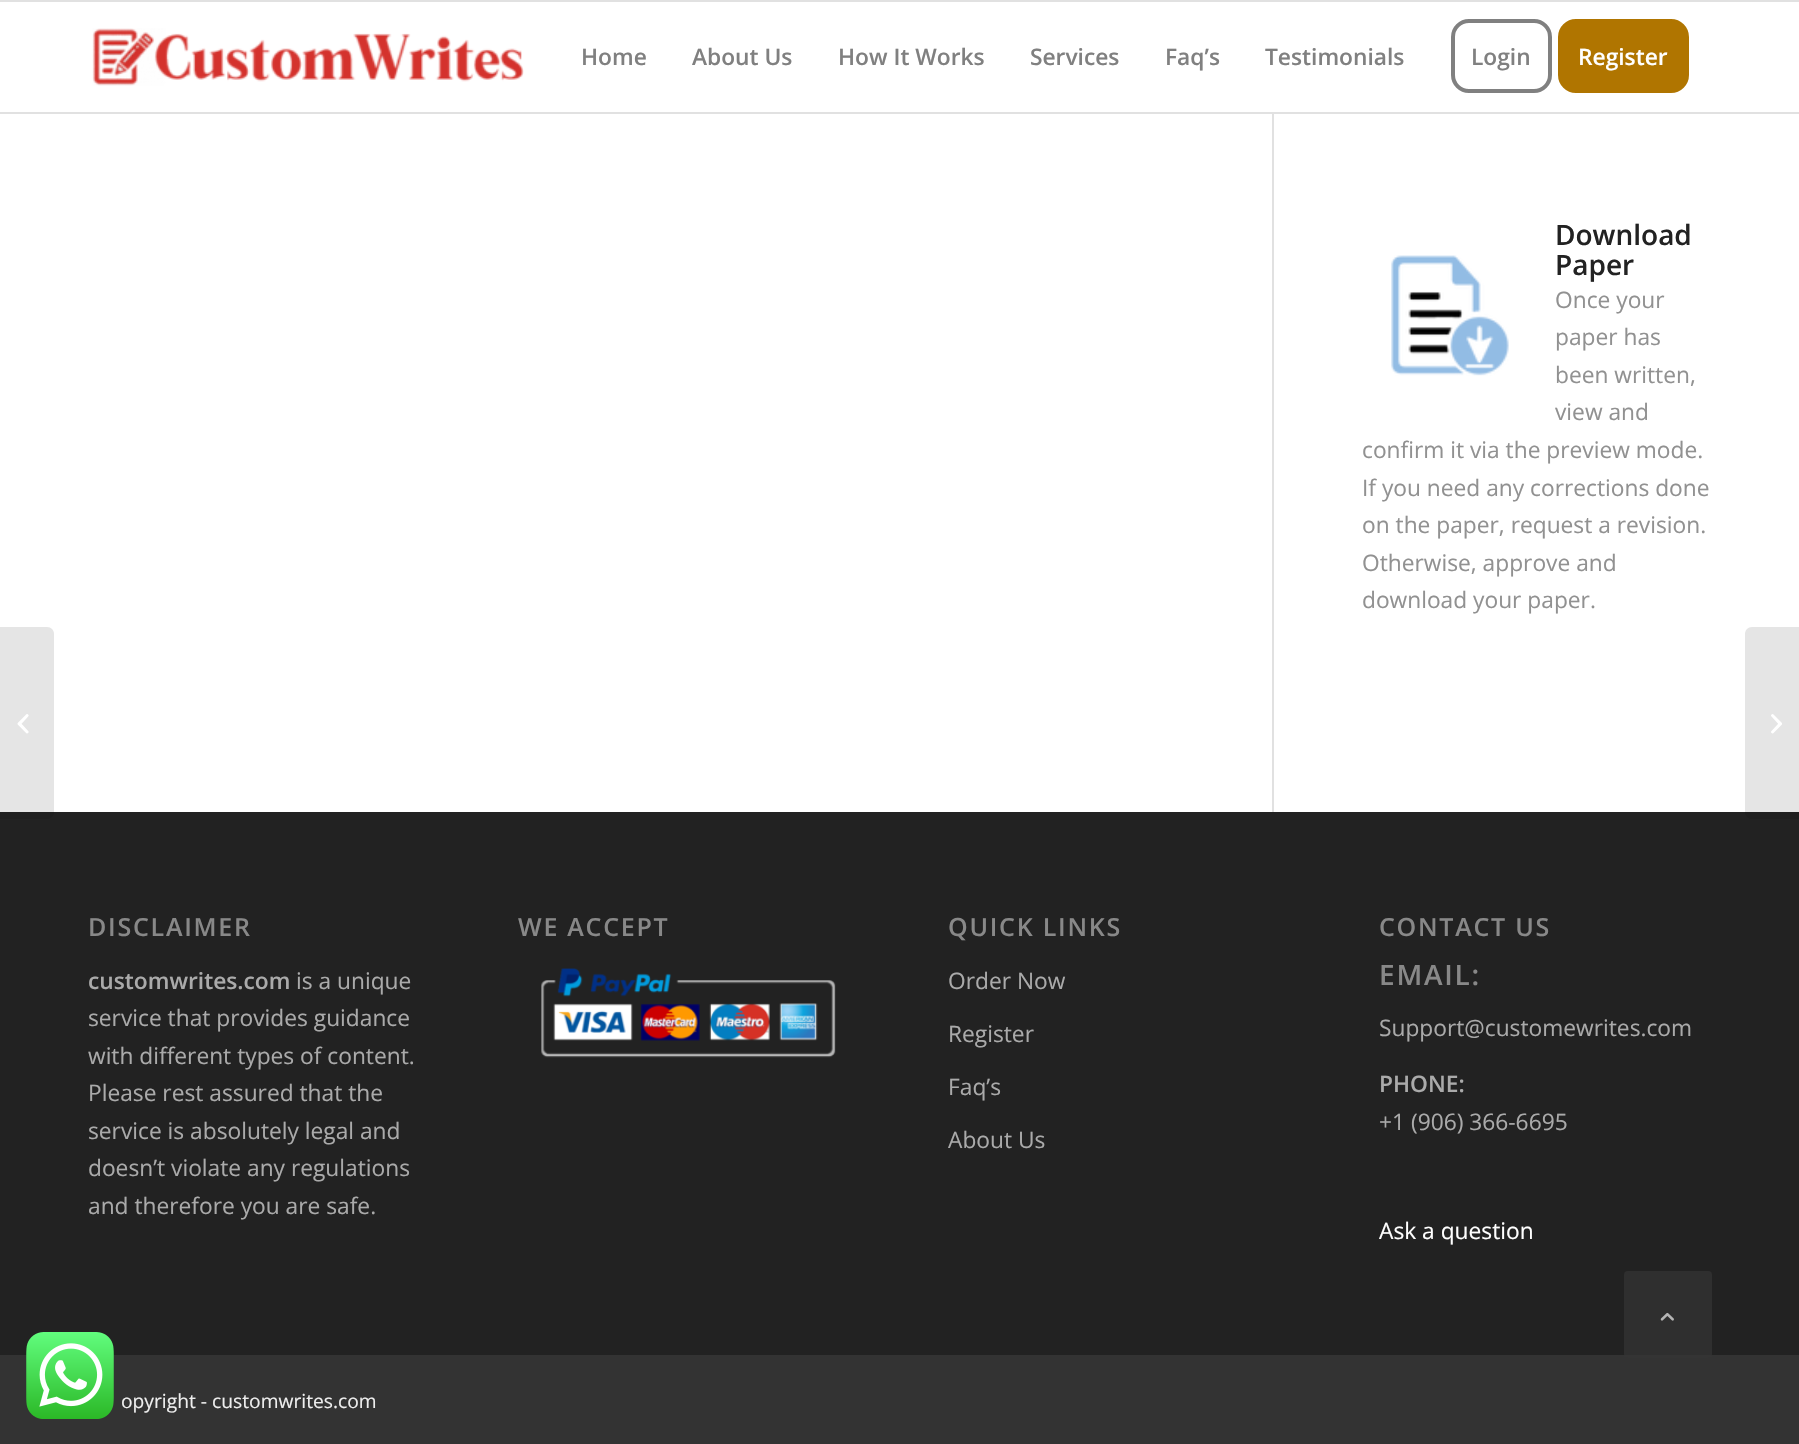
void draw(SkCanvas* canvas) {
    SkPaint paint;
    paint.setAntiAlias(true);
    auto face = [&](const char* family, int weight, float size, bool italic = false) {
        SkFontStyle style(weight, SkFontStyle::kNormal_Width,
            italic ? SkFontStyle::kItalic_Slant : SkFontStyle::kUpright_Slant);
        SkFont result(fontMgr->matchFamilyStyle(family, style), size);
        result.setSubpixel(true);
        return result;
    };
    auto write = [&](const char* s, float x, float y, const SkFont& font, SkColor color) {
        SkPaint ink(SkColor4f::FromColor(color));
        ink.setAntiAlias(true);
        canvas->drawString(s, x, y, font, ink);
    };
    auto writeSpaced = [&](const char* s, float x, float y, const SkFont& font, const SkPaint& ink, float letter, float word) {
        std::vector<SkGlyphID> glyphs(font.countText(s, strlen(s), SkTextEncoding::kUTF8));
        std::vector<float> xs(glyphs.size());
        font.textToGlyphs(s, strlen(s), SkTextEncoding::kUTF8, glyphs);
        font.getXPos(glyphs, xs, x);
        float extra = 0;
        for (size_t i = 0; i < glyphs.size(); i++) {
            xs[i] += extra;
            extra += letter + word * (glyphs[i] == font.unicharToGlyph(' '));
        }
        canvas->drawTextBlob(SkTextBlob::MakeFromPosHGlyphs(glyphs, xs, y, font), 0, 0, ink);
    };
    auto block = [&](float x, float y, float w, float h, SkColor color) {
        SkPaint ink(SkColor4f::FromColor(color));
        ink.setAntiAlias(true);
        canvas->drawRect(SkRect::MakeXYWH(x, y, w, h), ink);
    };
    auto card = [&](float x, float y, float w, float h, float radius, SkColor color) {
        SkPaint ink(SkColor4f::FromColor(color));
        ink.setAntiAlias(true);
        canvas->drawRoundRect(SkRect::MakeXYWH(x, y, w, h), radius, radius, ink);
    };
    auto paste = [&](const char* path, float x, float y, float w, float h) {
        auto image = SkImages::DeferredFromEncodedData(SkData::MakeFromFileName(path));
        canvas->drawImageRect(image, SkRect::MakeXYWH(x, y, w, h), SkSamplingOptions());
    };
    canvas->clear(SK_ColorWHITE);
    block(0, 0, 1799, 2, SkColorSetRGB(225, 225, 225));
    block(0, 112, 1799, 2, SkColorSetRGB(225, 225, 225));
    paste("pic1.png", 92, 28, 432, 58);
    auto kFont1 = face("Open Sans", 600, 22.75f);
    write("Home", 581, 65, kFont1, SkColorSetRGB(128, 128, 128));
    write("About Us", 692, 65, kFont1, SkColorSetRGB(128, 128, 128));
    write("How It Works", 838, 65, kFont1, SkColorSetRGB(128, 128, 128));
    write("Services", 1030, 65, kFont1, SkColorSetRGB(128, 128, 128));
    write("Faq’s", 1165, 65, kFont1, SkColorSetRGB(128, 128, 128));
    write("Testimonials", 1265, 65, kFont1, SkColorSetRGB(128, 128, 128));
    paint.setStyle(SkPaint::kStroke_Style);
    paint.setStrokeWidth(4);
    paint.setColor(SkColorSetRGB(128, 128, 128));
    canvas->drawRoundRect(SkRect::MakeXYWH(1453, 21, 97, 70), 16, 16, paint);
    write("Login", 1471, 65, kFont1, SkColorSetRGB(128, 128, 128));
    paint.setStyle(SkPaint::kFill_Style);
    paint.setColor(SkColorSetRGB(176, 117, 0));
    canvas->drawRoundRect(SkRect::MakeXYWH(1560, 21, 127, 70), 16, 16, paint);
    paint.setStyle(SkPaint::kStroke_Style);
    canvas->drawRoundRect(SkRect::MakeXYWH(1560, 21, 127, 70), 16, 16, paint);
    write("Register", 1578, 65, kFont1, SK_ColorWHITE);
    block(0, 812, 1799, 543, SkColorSetRGB(34, 34, 34));
    paint.setStyle(SkPaint::kFill_Style);
    paint.setColor(SkColorSetARGB(26, 0, 0, 0));
    canvas->drawPath(SkPathBuilder().moveTo(0, 627).lineTo(47, 627).cubicTo(51, 627, 54, 630, 54, 634).lineTo(54, 812).cubicTo(54, 816, 51, 819, 47, 819).lineTo(0, 819).close().detach(), paint);
    paste("pic2.png", 17, 714, 12, 20);
    block(1272, 114, 2, 698, SkColorSetRGB(225, 225, 225));
    auto kFont2 = face("Open Sans", 600, 28);
    write("Download", 1555, 245, kFont2, SkColorSetRGB(34, 34, 34));
    paste("pic3.png", 1391, 255, 118, 121);
    write("Paper", 1555, 275, kFont2, SkColorSetRGB(34, 34, 34));
    auto kFont3 = face("Open Sans", 400, 22.75f);
    write("Once your", 1555, 308, kFont3, SkColorSetRGB(145, 145, 145));
    write("paper has", 1555, 345, kFont3, SkColorSetRGB(145, 145, 145));
    write("been written,", 1555, 383, kFont3, SkColorSetRGB(145, 145, 145));
    write("view and", 1555, 420, kFont3, SkColorSetRGB(145, 145, 145));
    write("confirm it via the preview mode.", 1362, 458, kFont3, SkColorSetRGB(145, 145, 145));
    write("If you need any corrections done", 1362, 496, kFont3, SkColorSetRGB(145, 145, 145));
    write("on the paper, request a revision.", 1362, 533, kFont3, SkColorSetRGB(145, 145, 145));
    write("Otherwise, approve and", 1362, 571, kFont3, SkColorSetRGB(145, 145, 145));
    write("download your paper.", 1362, 608, kFont3, SkColorSetRGB(145, 145, 145));
    auto kFont4 = face("Open Sans", 600, 25);
    paint.setColor(SkColorSetRGB(136, 136, 136));
    writeSpaced("DISCLAIMER", 88, 936, kFont4, paint, 1.75f, 0);
    write("customwrites.com", 88, 989, kFont1, SkColorSetRGB(170, 170, 170));
    write("is a unique", 296, 989, kFont3, SkColorSetRGB(170, 170, 170));
    write("service that provides guidance", 88, 1026, kFont3, SkColorSetRGB(170, 170, 170));
    write("with different types of content.", 88, 1064, kFont3, SkColorSetRGB(170, 170, 170));
    write("Please rest assured that the", 88, 1101, kFont3, SkColorSetRGB(170, 170, 170));
    write("service is absolutely legal and", 88, 1139, kFont3, SkColorSetRGB(170, 170, 170));
    write("doesn’t violate any regulations", 88, 1176, kFont3, SkColorSetRGB(170, 170, 170));
    write("and therefore you are safe.", 88, 1214, kFont3, SkColorSetRGB(170, 170, 170));
    writeSpaced("WE ACCEPT", 518, 936, kFont4, paint, 1.75f, 0);
    paste("pic4.png", 541, 968, 295, 90);
    writeSpaced("QUICK LINKS", 948, 936, kFont4, paint, 1.75f, 0);
    write("Order Now", 948, 989, kFont3, SkColorSetRGB(170, 170, 170));
    write("Register", 948, 1042, kFont3, SkColorSetRGB(170, 170, 170));
    write("Faq’s", 948, 1095, kFont3, SkColorSetRGB(170, 170, 170));
    write("About Us", 948, 1148, kFont3, SkColorSetRGB(170, 170, 170));
    writeSpaced("CONTACT US", 1379, 936, kFont4, paint, 1.75f, 0);
    writeSpaced("EMAIL:", 1379, 985, kFont2, paint, 1.75f, 0);
    write("Support@customewrites.com", 1379, 1036, kFont3, SkColorSetRGB(170, 170, 170));
    write("PHONE:", 1379, 1092, kFont1, SkColorSetRGB(170, 170, 170));
    write("+1 (906) 366-6695", 1379, 1130, kFont3, SkColorSetRGB(170, 170, 170));
    write("Ask a question", 1379, 1239, kFont3, SK_ColorWHITE);
    block(0, 1355, 1799, 89, SkColorSetRGB(51, 51, 51));
    auto kFont5 = face("Open Sans", 400, 19.25f);
    write("opyright - customwrites.com", 121, 1408, kFont5, SkColorSetRGB(238, 238, 238));
    paint.setColor(SkColorSetARGB(26, 0, 0, 0));
    canvas->drawPath(SkPathBuilder().moveTo(1752, 627).lineTo(1799, 627).lineTo(1799, 819).lineTo(1752, 819).cubicTo(1748, 819, 1745, 816, 1745, 812).lineTo(1745, 634).cubicTo(1745, 630, 1748, 627, 1752, 627).close().detach(), paint);
    paste("pic5.png", 1771, 714, 11, 20);
    card(1624, 1271, 88, 87, 4, SkColorSetARGB(179, 51, 51, 51));
    paste("pic6.png", 1660, 1312, 14, 9);
    paste("pic7.png", 26, 1332, 88, 87);
}
